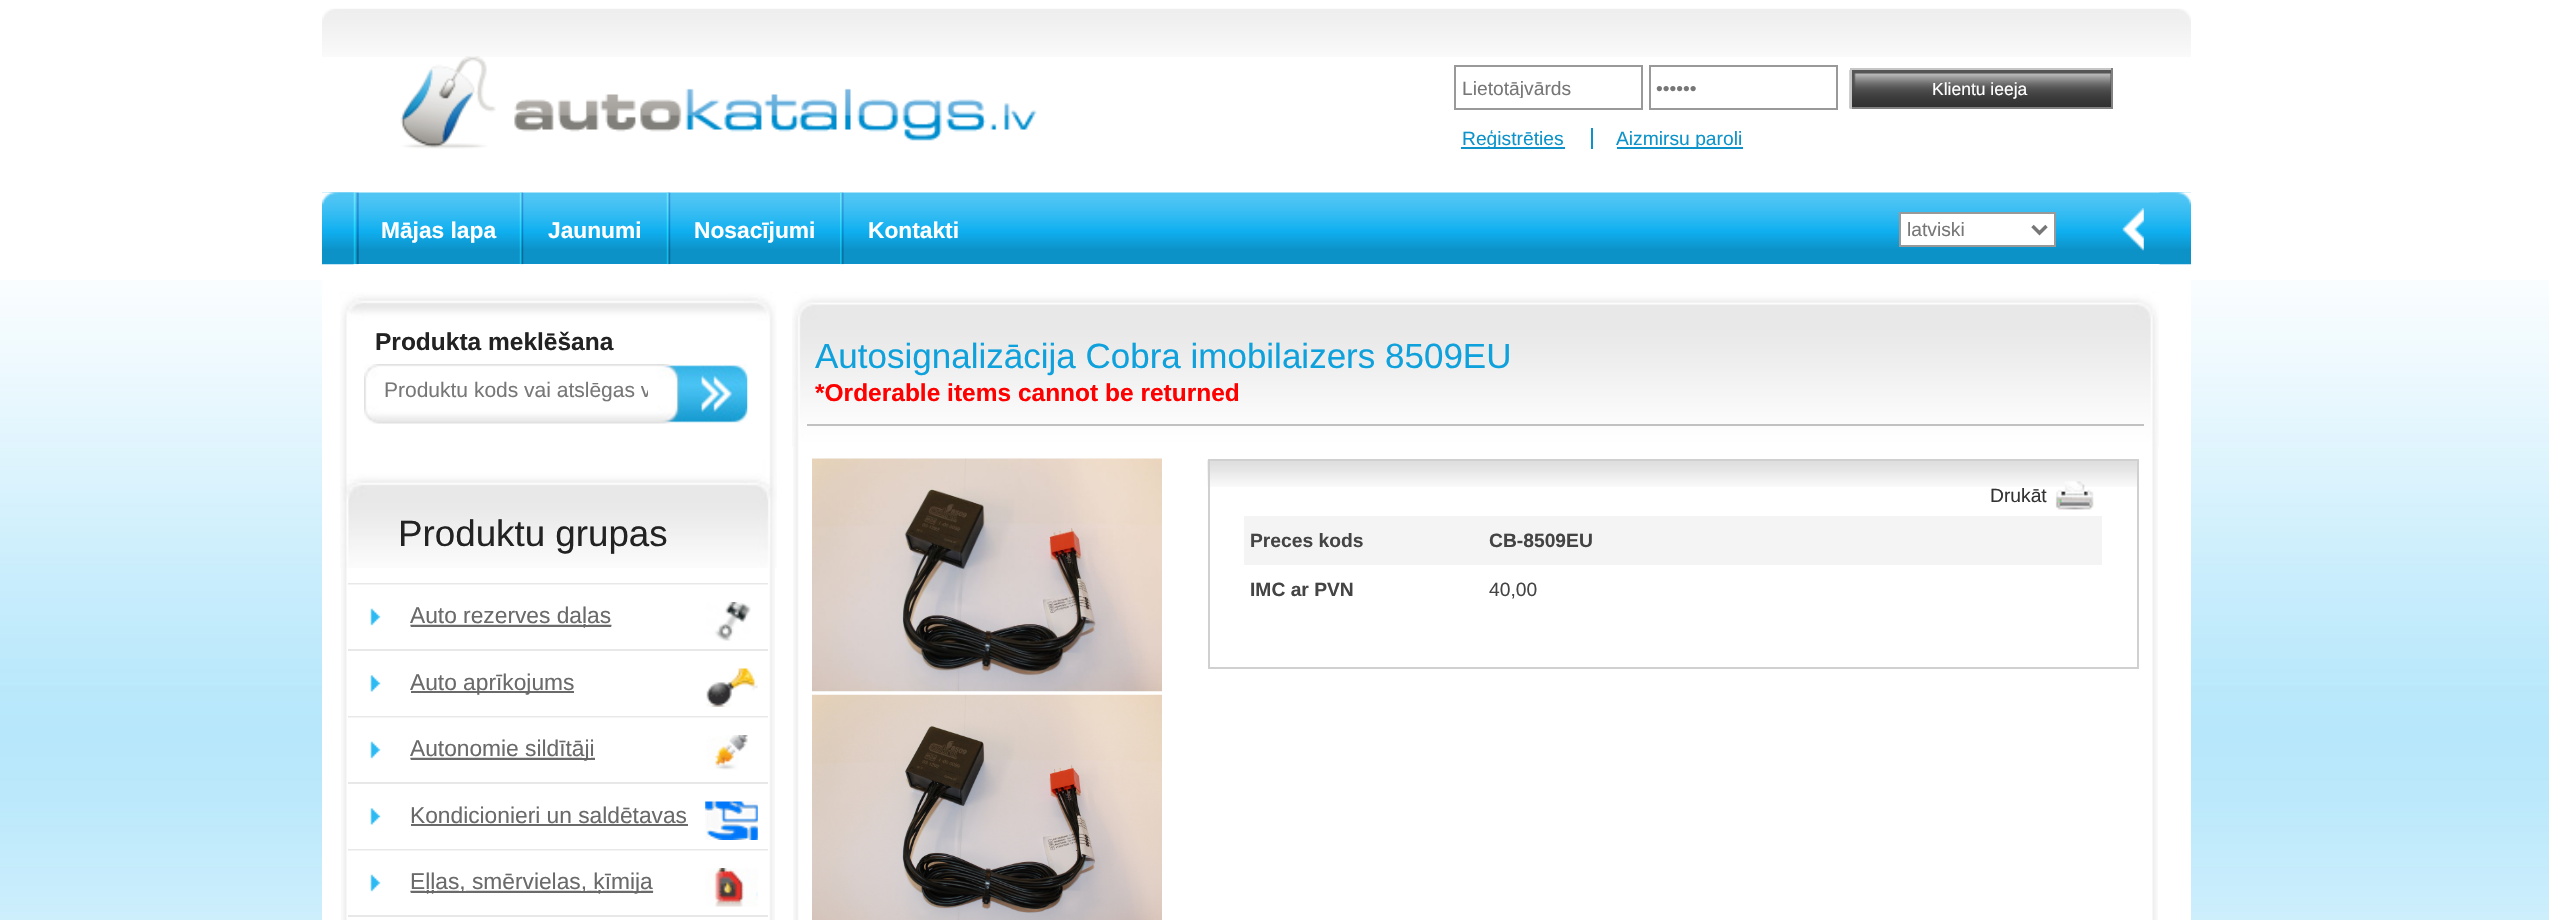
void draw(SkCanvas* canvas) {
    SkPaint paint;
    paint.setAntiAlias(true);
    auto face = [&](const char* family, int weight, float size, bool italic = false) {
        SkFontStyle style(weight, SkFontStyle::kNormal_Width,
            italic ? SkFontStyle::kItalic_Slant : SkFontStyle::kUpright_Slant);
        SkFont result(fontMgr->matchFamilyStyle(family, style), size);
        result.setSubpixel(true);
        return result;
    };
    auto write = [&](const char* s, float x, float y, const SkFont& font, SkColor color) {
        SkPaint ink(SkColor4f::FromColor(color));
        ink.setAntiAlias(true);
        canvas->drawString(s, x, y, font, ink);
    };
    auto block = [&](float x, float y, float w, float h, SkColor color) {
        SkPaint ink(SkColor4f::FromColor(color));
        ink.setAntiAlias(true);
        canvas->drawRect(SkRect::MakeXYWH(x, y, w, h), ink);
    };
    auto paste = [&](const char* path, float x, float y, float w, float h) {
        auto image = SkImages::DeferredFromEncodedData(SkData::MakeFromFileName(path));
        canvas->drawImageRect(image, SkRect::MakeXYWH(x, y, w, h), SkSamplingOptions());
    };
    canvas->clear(SK_ColorWHITE);
    paste("pic1.png", 0, 280, 2549, 640);
    paste("pic2.png", 322, 8, 1869, 49);
    paste("pic3.png", 400, 56, 637, 93);
    paint.setStyle(SkPaint::kStroke_Style);
    paint.setStrokeWidth(2);
    paint.setColor(SkColorSetRGB(153, 153, 153));
    canvas->drawRect(SkRect::MakeXYWH(1455, 66, 187, 43), paint);
    canvas->save();
    canvas->clipRect(SkRect::MakeXYWH(1461, 77, 175, 21));
    auto kFont1 = face("Liberation Sans", 400, 19.25f);
    write("Lietotājvārds", 1462, 95, kFont1, SkColorSetRGB(119, 119, 119));
    canvas->restore();
    canvas->drawRect(SkRect::MakeXYWH(1650, 66, 187, 43), paint);
    write("••••••", 1656, 95, kFont1, SkColorSetRGB(119, 119, 119));
    paste("pic4.png", 1849, 70, 262, 39);
    block(1850, 68, 262, 2, SkColorSetRGB(198, 198, 198));
    block(2111, 68, 2, 41, SkColorSetRGB(129, 129, 129));
    block(1850, 107, 262, 2, SkColorSetRGB(129, 129, 129));
    block(1850, 68, 2, 41, SkColorSetRGB(198, 198, 198));
    auto kFont2 = face("Liberation Sans", 400, 17.5f);
    write("Klientu ieeja", 1932, 95, kFont2, SK_ColorWHITE);
    block(1461, 147, 104, 2, SkColorSetRGB(13, 147, 201));
    write("Reģistrēties", 1462, 145, kFont1, SkColorSetRGB(13, 147, 201));
    block(1617, 147, 126, 2, SkColorSetRGB(13, 147, 201));
    write("Aizmirsu paroli", 1616, 145, kFont1, SkColorSetRGB(13, 147, 201));
    block(1591, 128, 2, 21, SkColorSetRGB(13, 147, 201));
    paste("pic5.png", 322, 192, 1869, 72);
    paste("pic6.png", 322, 192, 32, 73);
    paste("pic7.png", 353, 192, 6, 73);
    auto kFont3 = face("Liberation Sans", 700, 22.75f);
    write("Mājas lapa", 381, 238, kFont3, SK_ColorWHITE);
    paste("pic8.png", 519, 192, 5, 73);
    write("Jaunumi", 548, 238, kFont3, SK_ColorWHITE);
    paste("pic8.png", 666, 192, 5, 73);
    write("Nosacījumi", 694, 238, kFont3, SK_ColorWHITE);
    paste("pic9.png", 840, 192, 4, 73);
    write("Kontakti", 868, 238, kFont3, SK_ColorWHITE);
    paint.setStyle(SkPaint::kFill_Style);
    paint.setColor(SK_ColorWHITE);
    canvas->drawRect(SkRect::MakeXYWH(1900, 213, 155, 33), paint);
    paint.setStyle(SkPaint::kStroke_Style);
    paint.setColor(SkColorSetRGB(153, 153, 153));
    canvas->drawRect(SkRect::MakeXYWH(1900, 213, 155, 33), paint);
    paint.setStrokeWidth(3.5f);
    paint.setColor(SkColorSetRGB(119, 119, 119));
    canvas->drawPath(SkPathBuilder().moveTo(2032.5f, 226).lineTo(2039.5f, 233).lineTo(2046.5f, 226).detach(), paint);
    canvas->save();
    canvas->clipRect(SkRect::MakeXYWH(1908, 217, 119, 25));
    write("latviski", 1907, 236, kFont1, SkColorSetRGB(119, 119, 119));
    canvas->restore();
    paste("pic10.png", 2122, 208, 22, 43);
    paste("pic11.png", 2159, 192, 32, 73);
    block(322, 280, 1869, 640, SK_ColorWHITE);
    paste("pic12.png", 341, 292, 434, 628);
    paste("pic13.png", 340, 292, 437, 276);
    auto kFont4 = face("Liberation Sans", 700, 24.5f);
    write("Produkta meklēšana", 375, 350, kFont4, SkColorSetRGB(34, 34, 34));
    paste("pic14.png", 364, 364, 384, 60);
    canvas->save();
    canvas->clipRect(SkRect::MakeXYWH(385, 378, 263, 25));
    auto kFont5 = face("Liberation Sans", 400, 21);
    write("Produktu kods vai atslēgas v", 384, 397, kFont5, SkColorSetRGB(119, 119, 119));
    canvas->restore();
    auto kFont6 = face("Liberation Sans", 400, 36.75f);
    write("Produktu grupas", 398, 546, kFont6, SkColorSetRGB(34, 34, 34));
    block(348, 583, 420, 2, SkColorSetRGB(232, 232, 232));
    paste("pic15.png", 348, 584, 420, 42);
    paste("pic16.png", 410, 602, 341, 39);
    block(411, 625, 200, 2, SkColorSetRGB(106, 106, 106));
    auto kFont7 = face("Liberation Sans", 400, 22.75f);
    write("Auto rezerves daļas", 410, 623, kFont7, SkColorSetRGB(106, 106, 106));
    block(348, 649, 420, 2, SkColorSetRGB(232, 232, 232));
    paste("pic17.png", 370, 675, 11, 17);
    paste("pic18.png", 706, 668, 52, 39);
    block(411, 691, 163, 2, SkColorSetRGB(106, 106, 106));
    write("Auto aprīkojums", 410, 690, kFont7, SkColorSetRGB(106, 106, 106));
    block(348, 716, 420, 2, SkColorSetRGB(232, 232, 232));
    paste("pic15.png", 348, 717, 420, 42);
    paste("pic19.png", 410, 735, 338, 35);
    block(411, 758, 184, 2, SkColorSetRGB(106, 106, 106));
    write("Autonomie sildītāji", 410, 756, kFont7, SkColorSetRGB(106, 106, 106));
    block(348, 782, 420, 2, SkColorSetRGB(232, 232, 232));
    paste("pic17.png", 370, 808, 11, 17);
    paste("pic20.png", 705, 801, 53, 39);
    write("Kondicionieri un saldētavas", 410, 823, kFont7, SkColorSetRGB(106, 106, 106));
    block(411, 824, 277, 2, SkColorSetRGB(106, 106, 106));
    block(348, 849, 420, 2, SkColorSetRGB(232, 232, 232));
    paste("pic15.png", 348, 850, 420, 42);
    paste("pic21.png", 410, 868, 348, 39);
    block(411, 891, 242, 2, SkColorSetRGB(106, 106, 106));
    write("Eļļas, smērvielas, ķīmija", 410, 889, kFont7, SkColorSetRGB(106, 106, 106));
    block(348, 915, 420, 2, SkColorSetRGB(232, 232, 232));
    paste("pic22.png", 793, 292, 1365, 628);
    paste("pic23.png", 792, 292, 1367, 155);
    auto kFont8 = face("Liberation Sans", 400, 35);
    write("Autosignalizācija Cobra imobilaizers 8509EU", 815, 368, kFont8, SkColorSetRGB(14, 161, 220));
    write("*Orderable items cannot be returned", 815, 401, kFont4, SkColorSetRGB(255, 0, 0));
    block(807, 424, 1337, 2, SkColorSetRGB(193, 193, 193));
    paste("pic24.png", 812, 458, 350, 234);
    paste("pic25.png", 812, 694, 350, 226);
    paste("pic26.png", 1207, 460, 930, 27);
    paint.setStrokeWidth(2);
    paint.setColor(SkColorSetRGB(208, 208, 208));
    canvas->drawRect(SkRect::MakeXYWH(1209, 460, 929, 208), paint);
    write("Drukāt", 1990, 502, kFont1, SkColorSetRGB(51, 51, 51));
    paste("pic27.png", 2055, 481, 39, 29);
    block(1244, 516, 858, 49, SkColorSetRGB(244, 244, 244));
    auto kFont9 = face("Liberation Sans", 700, 19.25f);
    write("Preces kods", 1250, 547, kFont9, SkColorSetRGB(68, 68, 68));
    write("CB-8509EU", 1489, 547, kFont9, SkColorSetRGB(68, 68, 68));
    write("IMC ar PVN", 1250, 596, kFont9, SkColorSetRGB(68, 68, 68));
    write("40,00", 1489, 596, kFont1, SkColorSetRGB(68, 68, 68));
}
